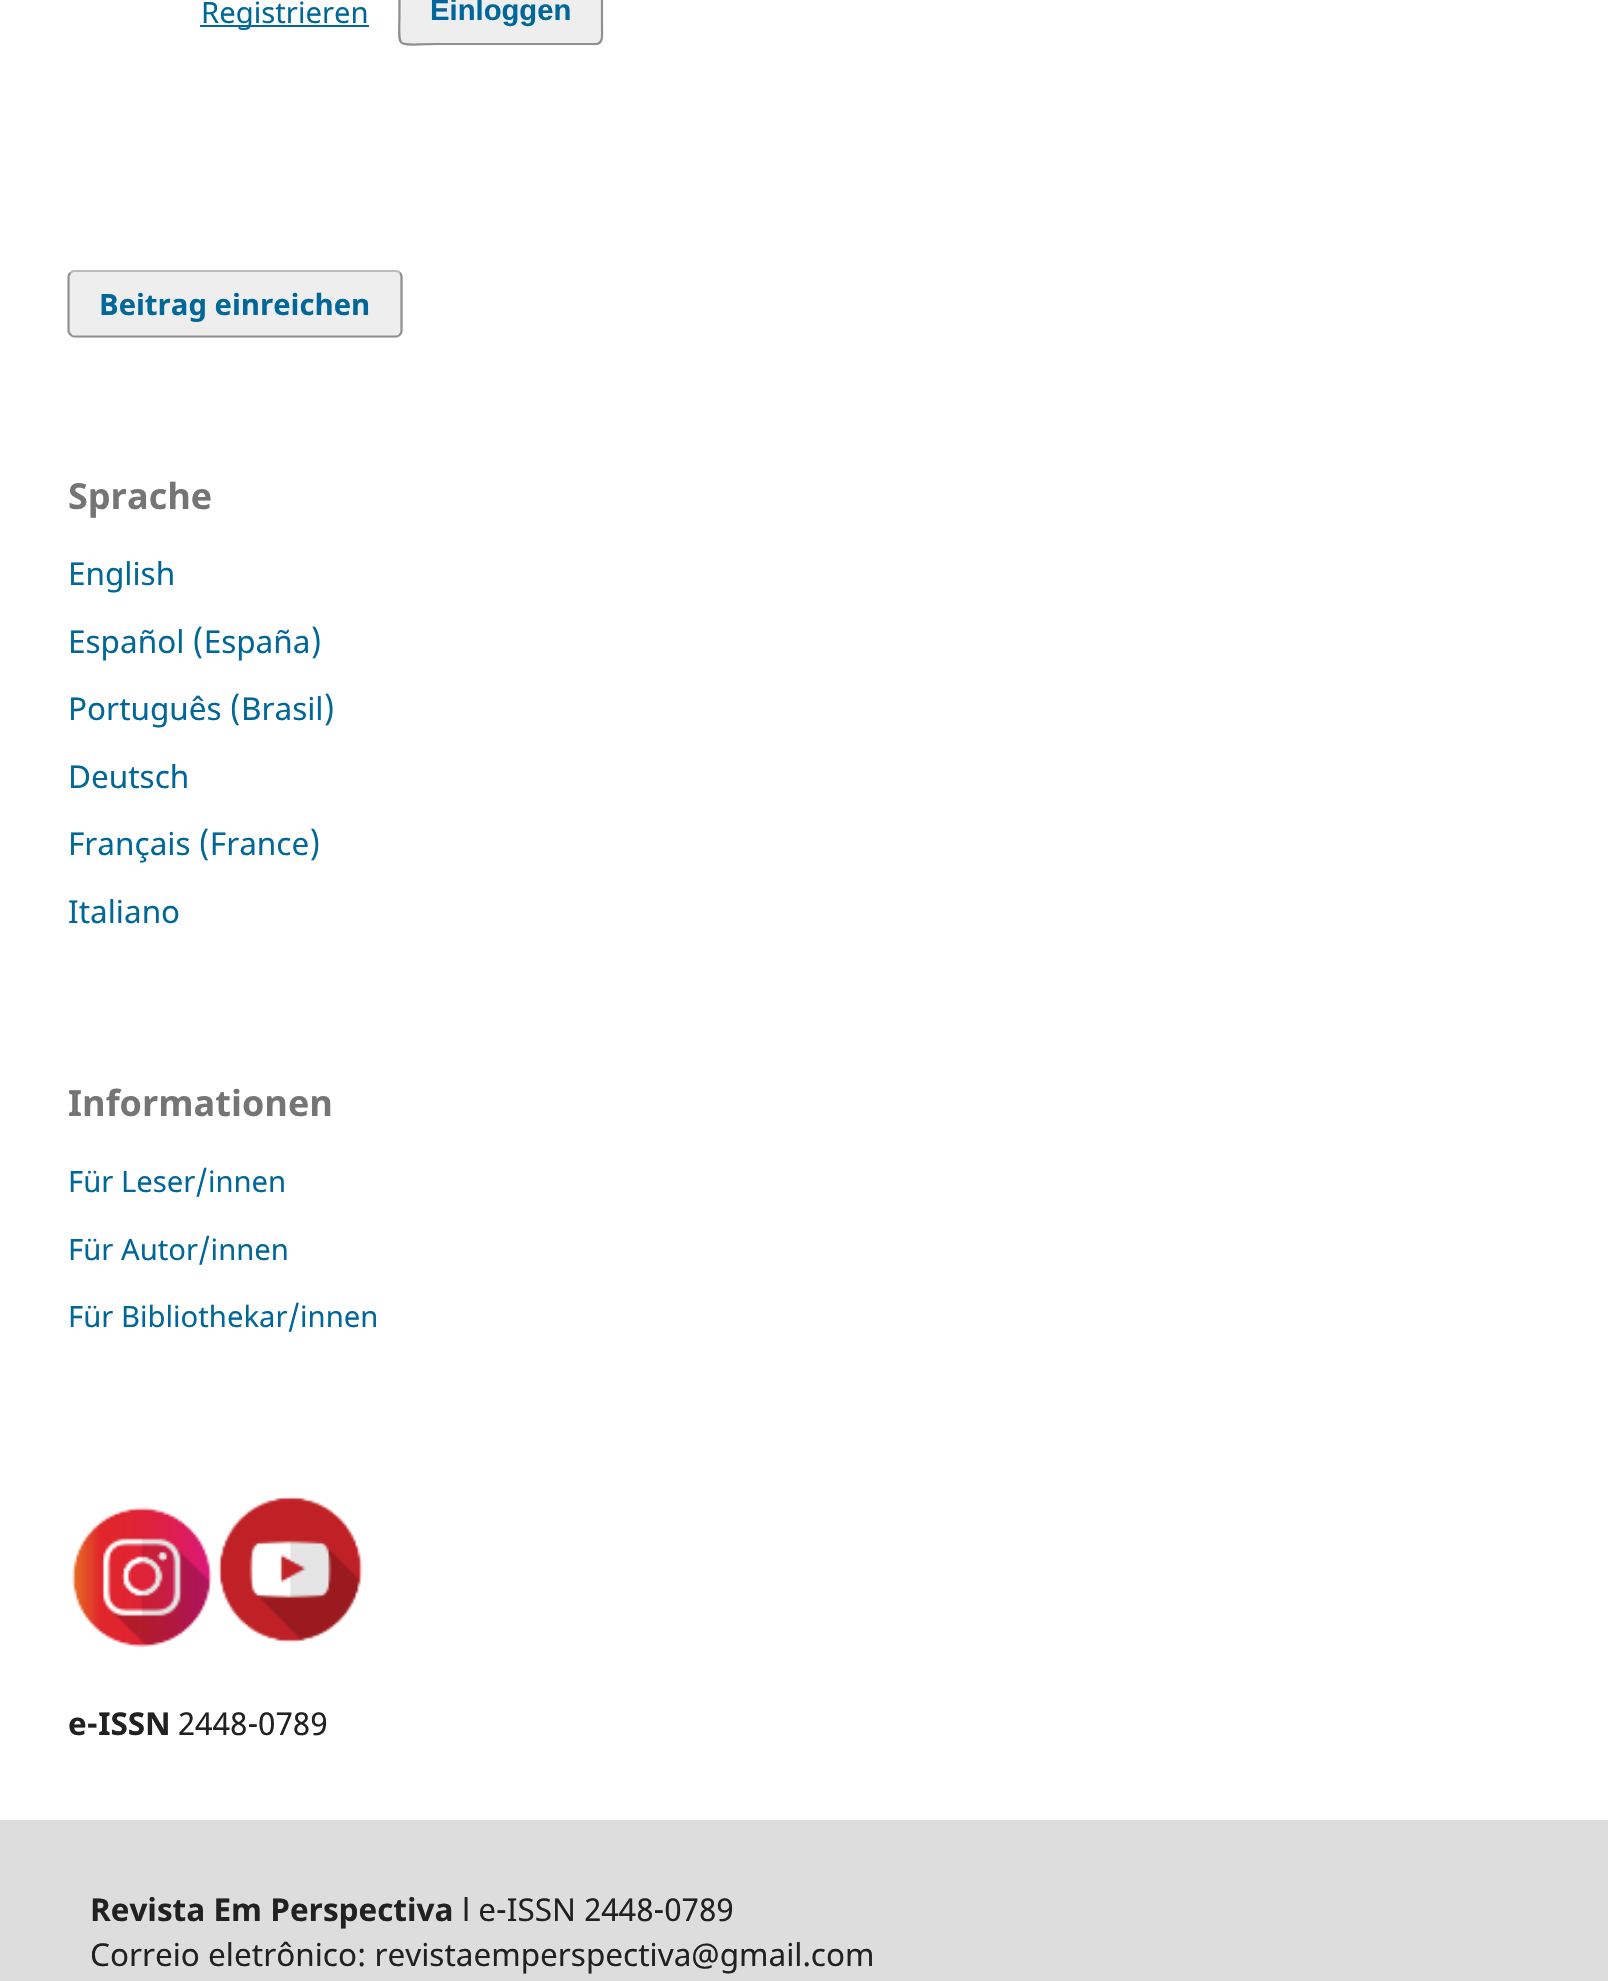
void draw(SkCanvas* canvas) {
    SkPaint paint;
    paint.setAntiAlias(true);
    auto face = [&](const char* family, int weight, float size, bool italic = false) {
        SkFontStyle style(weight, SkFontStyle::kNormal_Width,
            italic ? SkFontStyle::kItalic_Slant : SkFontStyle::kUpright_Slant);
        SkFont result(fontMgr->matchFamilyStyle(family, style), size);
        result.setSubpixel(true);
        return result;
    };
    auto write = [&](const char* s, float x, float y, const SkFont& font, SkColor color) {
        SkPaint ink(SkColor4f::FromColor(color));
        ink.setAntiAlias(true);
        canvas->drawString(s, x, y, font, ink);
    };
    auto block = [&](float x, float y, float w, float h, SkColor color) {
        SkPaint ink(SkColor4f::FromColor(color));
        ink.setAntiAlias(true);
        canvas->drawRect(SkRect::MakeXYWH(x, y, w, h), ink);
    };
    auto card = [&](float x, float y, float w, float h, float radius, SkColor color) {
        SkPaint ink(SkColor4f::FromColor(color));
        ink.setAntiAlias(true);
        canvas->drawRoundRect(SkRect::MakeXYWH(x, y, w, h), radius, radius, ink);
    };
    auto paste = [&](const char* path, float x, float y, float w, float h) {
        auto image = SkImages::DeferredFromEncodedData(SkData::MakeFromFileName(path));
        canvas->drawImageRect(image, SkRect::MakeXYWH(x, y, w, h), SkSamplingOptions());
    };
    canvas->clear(SK_ColorWHITE);
    block(200, 25, 169, 2, SkColorSetRGB(0, 103, 152));
    auto kFont1 = face("Noto Sans", 400, 29.25f);
    write("Registrieren", 201, 23, kFont1, SkColorSetRGB(0, 103, 152));
    card(398, -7, 205, 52, 7, SkColorSetRGB(238, 238, 238));
    paint.setStyle(SkPaint::kStroke_Style);
    paint.setStrokeWidth(2.2f);
    paint.setColor(SkColorSetARGB(102, 0, 0, 0));
    canvas->drawPath(SkPathBuilder().moveTo(600, -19.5f).cubicTo(603.5f, -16.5f, 602, -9.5f, 602, -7).lineTo(602, 29).cubicTo(602, 33.5f, 603.5f, 44, 596, 44).lineTo(437, 44).cubicTo(393, 44, 399.5f, 52, 399.5f, 11).lineTo(399.5f, -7).cubicTo(399.5f, -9.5f, 398, -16.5f, 401, -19.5f).detach(), paint);
    auto kFont2 = face("Liberation Sans", 700, 29.25f);
    write("Einloggen", 430, 20, kFont2, SkColorSetRGB(0, 103, 152));
    card(68, 270, 335, 68, 7, SkColorSetRGB(238, 238, 238));
    paint.setColor(SkColorSetRGB(187, 187, 187));
    canvas->drawPath(SkPathBuilder().moveTo(70.5f, 273).cubicTo(71.5f, 271.5f, 73, 271, 74, 271).lineTo(396, 271).cubicTo(397.5f, 271, 399, 271.5f, 400, 273).detach(), paint);
    paint.setColor(SkColorSetARGB(102, 0, 0, 0));
    canvas->drawPath(SkPathBuilder().moveTo(400, 273).cubicTo(401, 274, 401.5f, 275.5f, 401.5f, 277).lineTo(401.5f, 331).cubicTo(401.5f, 332, 401, 333.5f, 400, 334.5f).cubicTo(399, 336, 397.5f, 336.5f, 396, 336.5f).lineTo(74, 336.5f).cubicTo(73, 336.5f, 71.5f, 336, 70.5f, 334.5f).cubicTo(69, 333.5f, 68.5f, 332, 68.5f, 331).lineTo(68.5f, 277).cubicTo(68.5f, 275.5f, 69, 274, 70.5f, 273).detach(), paint);
    auto kFont3 = face("Noto Sans", 700, 29.25f);
    write("Beitrag einreichen", 99, 315, kFont3, SkColorSetRGB(0, 103, 152));
    auto kFont4 = face("Noto Sans", 700, 36);
    write("Sprache", 68, 509, kFont4, SkColorSetRGB(117, 117, 117));
    auto kFont5 = face("Noto Sans", 400, 31.5f);
    write("English", 68, 585, kFont5, SkColorSetRGB(0, 103, 152));
    write("Español (España)", 68, 653, kFont5, SkColorSetRGB(0, 103, 152));
    write("Português (Brasil)", 68, 720, kFont5, SkColorSetRGB(0, 103, 152));
    write("Deutsch", 68, 788, kFont5, SkColorSetRGB(0, 103, 152));
    write("Français (France)", 68, 855, kFont5, SkColorSetRGB(0, 103, 152));
    write("Italiano", 68, 923, kFont5, SkColorSetRGB(0, 103, 152));
    write("Informationen", 68, 1116, kFont4, SkColorSetRGB(117, 117, 117));
    write("Für Leser/innen", 68, 1192, kFont1, SkColorSetRGB(0, 103, 152));
    write("Für Autor/innen", 68, 1260, kFont1, SkColorSetRGB(0, 103, 152));
    write("Für Bibliothekar/innen", 68, 1327, kFont1, SkColorSetRGB(0, 103, 152));
    paste("pic1.png", 71, 1507, 141, 140);
    paste("pic2.png", 218, 1496, 145, 147);
    auto kFont6 = face("Noto Sans", 700, 31.5f);
    write("e-ISSN", 68, 1735, kFont6, SkColorSetRGB(33, 33, 33));
    write("2448-0789", 178, 1735, kFont5, SkColorSetRGB(33, 33, 33));
    block(0, 1820, 1608, 161, SkColorSetRGB(221, 221, 221));
    write("Revista Em Perspectiva", 90, 1921, kFont6, SkColorSetRGB(33, 33, 33));
    write("l e-ISSN 2448-0789", 462, 1921, kFont5, SkColorSetRGB(33, 33, 33));
    write("Correio eletrônico: revistaemperspectiva@gmail.com", 90, 1966, kFont5, SkColorSetRGB(33, 33, 33));
}
